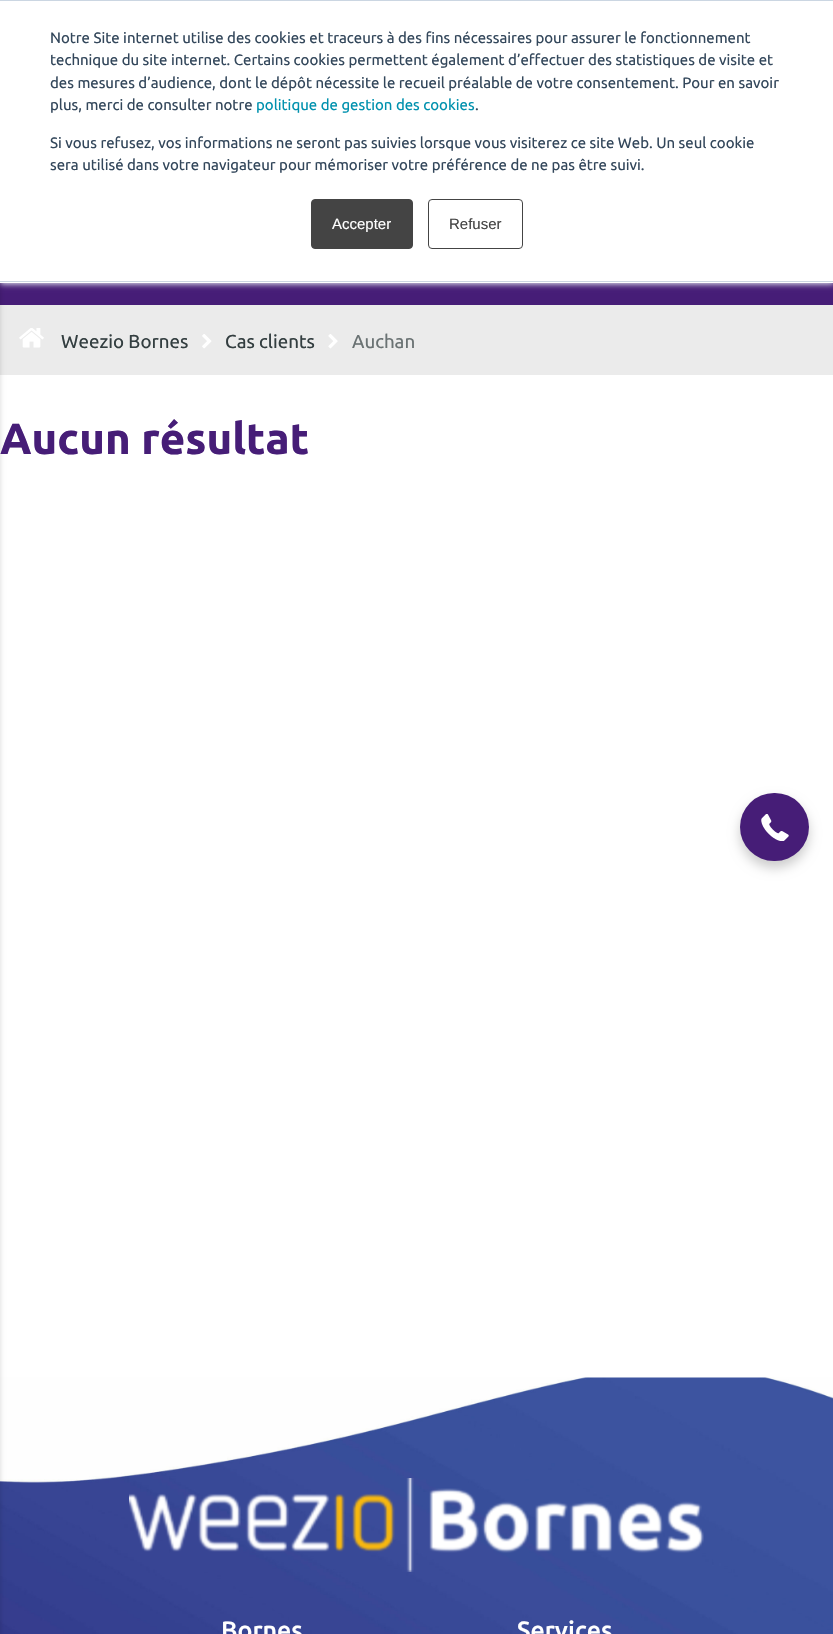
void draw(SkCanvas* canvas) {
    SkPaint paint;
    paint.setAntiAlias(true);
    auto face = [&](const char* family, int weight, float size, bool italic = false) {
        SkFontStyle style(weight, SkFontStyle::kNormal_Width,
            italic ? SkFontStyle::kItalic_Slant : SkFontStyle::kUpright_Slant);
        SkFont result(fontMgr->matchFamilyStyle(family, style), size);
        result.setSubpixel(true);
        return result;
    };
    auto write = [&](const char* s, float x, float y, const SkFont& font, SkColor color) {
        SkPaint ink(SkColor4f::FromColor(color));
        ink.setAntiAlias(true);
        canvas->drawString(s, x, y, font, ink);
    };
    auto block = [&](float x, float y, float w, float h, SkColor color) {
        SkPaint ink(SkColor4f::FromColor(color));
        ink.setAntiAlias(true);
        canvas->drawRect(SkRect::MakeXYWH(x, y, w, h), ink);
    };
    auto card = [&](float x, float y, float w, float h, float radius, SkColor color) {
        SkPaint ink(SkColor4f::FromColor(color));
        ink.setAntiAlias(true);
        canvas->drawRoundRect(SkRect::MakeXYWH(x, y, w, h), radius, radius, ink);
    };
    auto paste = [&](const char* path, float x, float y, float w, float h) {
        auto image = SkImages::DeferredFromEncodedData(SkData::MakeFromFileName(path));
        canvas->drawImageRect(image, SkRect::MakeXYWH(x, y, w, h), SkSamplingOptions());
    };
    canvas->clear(SK_ColorWHITE);
    block(0, 283, 833, 22, SkColorSetRGB(70, 29, 119));
    paint.setColor(SkColorSetRGB(234, 240, 246));
    paint.setMaskFilter(SkMaskFilter::MakeBlur(kNormal_SkBlurStyle, 3));
    canvas->drawRect(SkRect::MakeXYWH(0, 1, 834, 283), paint);
    paint.setMaskFilter(nullptr);
    block(0, 305, 833, 70, SkColorSetRGB(235, 235, 235));
    paste("pic5.png", 0, 1377, 833, 257);
    paint.setColor(SkColorSetARGB(51, 0, 0, 0));
    paint.setMaskFilter(SkMaskFilter::MakeBlur(kNormal_SkBlurStyle, 3));
    canvas->drawRect(SkRect::MakeXYWH(-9, 4, 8, 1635), paint);
    paint.setMaskFilter(nullptr);
    block(0, 1, 833, 282, SK_ColorWHITE);
    block(0, 0, 833, 1, SkColorSetRGB(203, 214, 226));
    block(0, 281, 833, 1, SkColorSetRGB(203, 214, 226));
    auto kFont1 = face("Ubuntu", 400, 15);
    write("Notre Site internet utilise des cookies et traceurs à des fins nécessaires pour assurer le fonctionnement", 50, 43, kFont1, SkColorSetRGB(51, 71, 91));
    write("technique du site internet. Certains cookies permettent également d’effectuer des statistiques de visite et", 50, 65, kFont1, SkColorSetRGB(51, 71, 91));
    write("des mesures d’audience, dont le dépôt nécessite le recueil préalable de votre consentement. Pour en savoir", 50, 88, kFont1, SkColorSetRGB(51, 71, 91));
    write("plus, merci de consulter notre", 50, 110, kFont1, SkColorSetRGB(51, 71, 91));
    write("politique de gestion des cookies", 256, 110, kFont1, SkColorSetRGB(0, 145, 174));
    write(".", 475, 110, kFont1, SkColorSetRGB(51, 71, 91));
    write("Si vous refusez, vos informations ne seront pas suivies lorsque vous visiterez ce site Web. Un seul cookie", 50, 148, kFont1, SkColorSetRGB(51, 71, 91));
    write("sera utilisé dans votre navigateur pour mémoriser votre préférence de ne pas être suivi.", 50, 170, kFont1, SkColorSetRGB(51, 71, 91));
    paint.setColor(SkColorSetRGB(68, 68, 68));
    canvas->drawRoundRect(SkRect::MakeXYWH(311.5f, 199.5f, 101, 49), 3.5f, 3.5f, paint);
    paint.setStyle(SkPaint::kStroke_Style);
    paint.setStrokeWidth(1);
    canvas->drawRoundRect(SkRect::MakeXYWH(311.5f, 199.5f, 101, 49), 3.5f, 3.5f, paint);
    auto kFont2 = face("Liberation Sans", 400, 15);
    write("Accepter", 332, 229, kFont2, SK_ColorWHITE);
    canvas->drawRoundRect(SkRect::MakeXYWH(428.5f, 199.5f, 94, 49), 3.5f, 3.5f, paint);
    write("Refuser", 449, 229, kFont2, SkColorSetRGB(68, 68, 68));
    paste("pic1.png", 19, 328, 25, 20);
    auto kFont3 = face("Ubuntu", 400, 18.75f);
    write("Weezio Bornes", 61, 348, kFont3, SkColorSetRGB(51, 62, 64));
    paste("pic2.png", 202, 334, 10, 15);
    write("Cas clients", 225, 348, kFont3, SkColorSetRGB(51, 62, 64));
    paste("pic3.png", 328, 334, 10, 15);
    write("Auchan", 352, 348, kFont3, SkColorSetRGB(106, 114, 115));
    auto kFont4 = face("Ubuntu", 700, 43.75f);
    write("Aucun résultat", 0, 454, kFont4, SkColorSetRGB(70, 29, 119));
    paint.setStyle(SkPaint::kFill_Style);
    paint.setColor(SkColorSetARGB(51, 0, 0, 0));
    paint.setMaskFilter(SkMaskFilter::MakeBlur(kNormal_SkBlurStyle, 6));
    canvas->drawRoundRect(SkRect::MakeXYWH(740, 799, 69, 69), 34.5f, 34.5f, paint);
    paint.setMaskFilter(nullptr);
    card(740, 793, 69, 68, 34, SkColorSetRGB(70, 29, 119));
    paste("pic4.png", 761, 814, 28, 27);
    paste("pic6.png", 129, 1478, 575, 94);
    auto kFont5 = face("Ubuntu", 500, 25);
    write("Bornes", 221, 1639, kFont5, SK_ColorWHITE);
    write("Services", 517, 1639, kFont5, SK_ColorWHITE);
}
